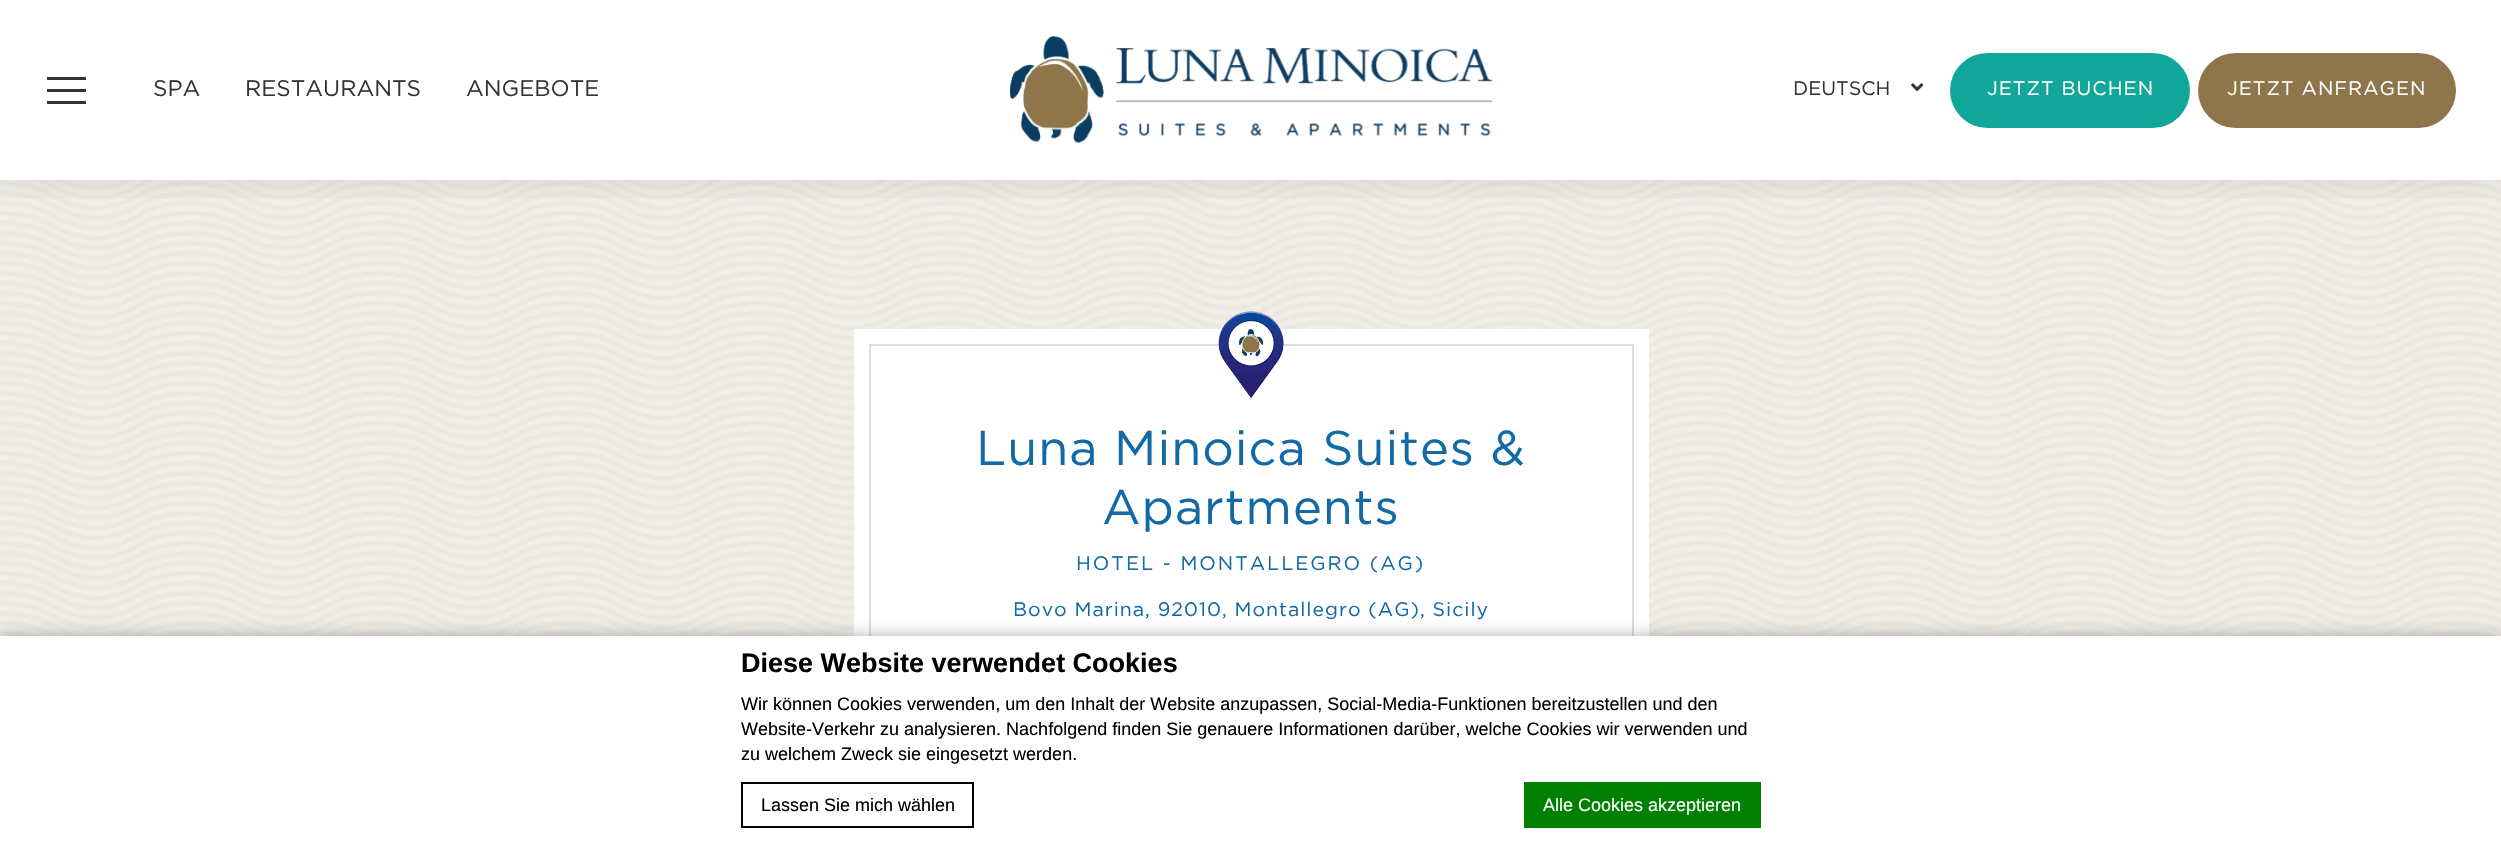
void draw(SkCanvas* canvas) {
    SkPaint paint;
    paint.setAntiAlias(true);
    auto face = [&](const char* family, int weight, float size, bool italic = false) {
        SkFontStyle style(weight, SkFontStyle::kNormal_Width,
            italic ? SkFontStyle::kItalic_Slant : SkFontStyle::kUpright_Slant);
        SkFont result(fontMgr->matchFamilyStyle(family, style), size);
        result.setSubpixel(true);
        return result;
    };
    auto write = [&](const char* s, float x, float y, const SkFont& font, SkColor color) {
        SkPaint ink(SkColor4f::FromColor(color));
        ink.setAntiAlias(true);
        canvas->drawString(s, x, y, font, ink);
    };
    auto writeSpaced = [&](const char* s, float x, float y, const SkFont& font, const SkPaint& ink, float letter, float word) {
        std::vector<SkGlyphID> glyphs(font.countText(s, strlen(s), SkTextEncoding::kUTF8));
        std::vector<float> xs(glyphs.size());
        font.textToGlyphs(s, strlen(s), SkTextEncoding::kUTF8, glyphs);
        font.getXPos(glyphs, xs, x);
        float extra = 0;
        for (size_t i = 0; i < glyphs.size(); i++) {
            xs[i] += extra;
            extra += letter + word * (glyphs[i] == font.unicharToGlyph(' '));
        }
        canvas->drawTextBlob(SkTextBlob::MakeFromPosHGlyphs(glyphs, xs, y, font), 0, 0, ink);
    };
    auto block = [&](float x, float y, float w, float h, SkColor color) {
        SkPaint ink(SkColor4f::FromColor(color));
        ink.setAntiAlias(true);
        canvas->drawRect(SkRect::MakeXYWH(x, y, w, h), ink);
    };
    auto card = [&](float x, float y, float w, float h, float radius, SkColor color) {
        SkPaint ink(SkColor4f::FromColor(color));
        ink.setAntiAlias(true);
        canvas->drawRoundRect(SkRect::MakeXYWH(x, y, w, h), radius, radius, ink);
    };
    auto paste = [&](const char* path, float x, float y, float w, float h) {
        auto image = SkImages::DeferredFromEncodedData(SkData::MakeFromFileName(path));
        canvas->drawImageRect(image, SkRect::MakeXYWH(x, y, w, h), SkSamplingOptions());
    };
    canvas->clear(SK_ColorWHITE);
    paste("pic3.png", 0, 180, 2501, 456);
    canvas->save();
    canvas->clipRect(SkRect::MakeXYWH(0, 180, 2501, 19));
    paint.setColor(SkColorSetARGB(26, 0, 0, 0));
    paint.setMaskFilter(SkMaskFilter::MakeBlur(kNormal_SkBlurStyle, 22.5f));
    canvas->drawRect(SkRect::MakeXYWH(0, 0, 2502, 180), paint);
    paint.setMaskFilter(nullptr);
    canvas->restore();
    block(47, 77, 39, 3, SkColorSetRGB(51, 51, 51));
    block(47, 101, 39, 3, SkColorSetRGB(51, 51, 51));
    block(47, 89, 39, 3, SkColorSetRGB(51, 51, 51));
    auto kFont1 = face("Gotham", 400, 22.5f);
    write("SPA", 153, 96, kFont1, SkColorSetRGB(51, 51, 51));
    write("RESTAURANTS", 245, 96, kFont1, SkColorSetRGB(51, 51, 51));
    write("ANGEBOTE", 466, 96, kFont1, SkColorSetRGB(51, 51, 51));
    paste("pic1.png", 1010, 36, 483, 107);
    auto kFont2 = face("Gotham", 400, 19.5f);
    write("DEUTSCH", 1793, 95, kFont2, SkColorSetRGB(51, 51, 51));
    paste("pic2.png", 1911, 83, 13, 9);
    card(1950, 53, 240, 75, 37.5f, SkColorSetRGB(17, 166, 154));
    paint.setColor(SK_ColorWHITE);
    writeSpaced("JETZT BUCHEN", 1987, 95, kFont2, paint, 1, 0);
    card(2198, 53, 258, 75, 37.5f, SkColorSetRGB(142, 118, 74));
    writeSpaced("JETZT ANFRAGEN", 2227, 95, kFont2, paint, 1, 0);
    block(854, 329, 795, 307, SK_ColorWHITE);
    paint.setStyle(SkPaint::kStroke_Style);
    paint.setStrokeWidth(2);
    paint.setColor(SkColorSetRGB(221, 221, 221));
    canvas->drawRect(SkRect::MakeXYWH(870, 345, 763, 421), paint);
    paste("pic4.png", 1218, 311, 66, 88);
    auto kFont3 = face("Gotham", 400, 48.75f);
    paint.setStyle(SkPaint::kFill_Style);
    paint.setColor(SkColorSetRGB(17, 105, 166));
    writeSpaced("Luna Minoica Suites &", 976, 465, kFont3, paint, 1, 0);
    writeSpaced("Apartments", 1102, 524, kFont3, paint, 1, 0);
    writeSpaced("HOTEL - MONTALLEGRO (AG)", 1076, 570, kFont2, paint, 1.95f, 0);
    writeSpaced("Bovo Marina, 92010, Montallegro (AG), Sicily", 1013, 616, kFont2, paint, 1, 0);
    paint.setColor(SkColorSetARGB(77, 0, 0, 0));
    paint.setMaskFilter(SkMaskFilter::MakeBlur(kNormal_SkBlurStyle, 7.5f));
    canvas->drawRect(SkRect::MakeXYWH(0, 636, 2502, 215), paint);
    paint.setMaskFilter(nullptr);
    block(0, 636, 2501, 214, SK_ColorWHITE);
    auto kFont4 = face("Liberation Sans", 700, 27);
    write("Diese Website verwendet Cookies", 741, 672, kFont4, SK_ColorBLACK);
    auto kFont5 = face("Liberation Sans", 400, 18);
    write("Wir können Cookies verwenden, um den Inhalt der Website anzupassen, Social-Media-Funktionen bereitzustellen und den", 741, 710, kFont5, SK_ColorBLACK);
    write("Website-Verkehr zu analysieren. Nachfolgend finden Sie genauere Informationen darüber, welche Cookies wir verwenden und", 741, 735, kFont5, SK_ColorBLACK);
    write("zu welchem Zweck sie eingesetzt werden.", 741, 760, kFont5, SK_ColorBLACK);
    paint.setStyle(SkPaint::kStroke_Style);
    paint.setColor(SK_ColorBLACK);
    canvas->drawRect(SkRect::MakeXYWH(742, 783, 231, 44), paint);
    write("Lassen Sie mich wählen", 761, 811, kFont5, SK_ColorBLACK);
    block(1524, 782, 237, 46, SkColorSetRGB(0, 128, 0));
    write("Alle Cookies akzeptieren", 1543, 811, kFont5, SK_ColorWHITE);
}
